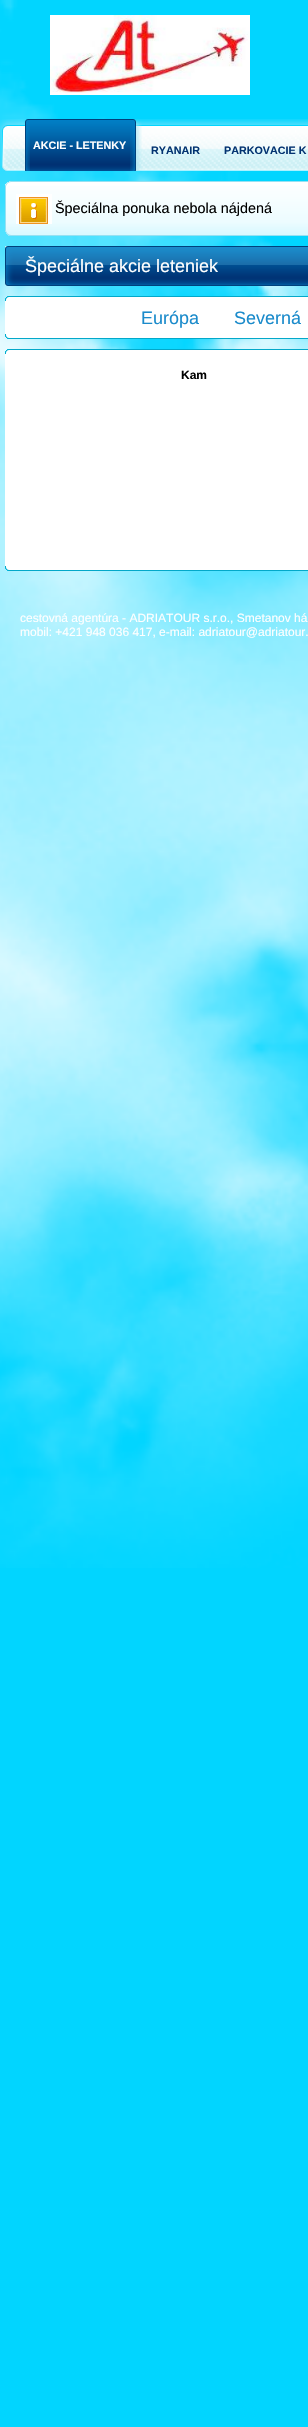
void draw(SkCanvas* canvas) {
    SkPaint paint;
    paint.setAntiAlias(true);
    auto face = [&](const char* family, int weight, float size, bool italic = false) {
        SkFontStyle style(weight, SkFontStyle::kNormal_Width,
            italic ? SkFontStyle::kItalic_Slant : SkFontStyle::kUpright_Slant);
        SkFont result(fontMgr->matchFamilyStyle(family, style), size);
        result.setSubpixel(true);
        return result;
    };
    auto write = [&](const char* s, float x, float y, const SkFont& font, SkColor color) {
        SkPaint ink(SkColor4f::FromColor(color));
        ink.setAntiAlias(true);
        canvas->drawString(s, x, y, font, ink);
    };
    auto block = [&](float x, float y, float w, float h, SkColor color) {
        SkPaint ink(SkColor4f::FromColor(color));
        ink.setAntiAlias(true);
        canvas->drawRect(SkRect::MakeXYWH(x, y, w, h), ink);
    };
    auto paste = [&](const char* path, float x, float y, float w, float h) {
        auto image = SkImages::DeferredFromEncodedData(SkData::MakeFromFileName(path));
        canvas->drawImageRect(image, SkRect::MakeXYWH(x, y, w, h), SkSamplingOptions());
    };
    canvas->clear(SkColorSetRGB(1, 213, 255));
    paste("pic1.png", 0, 0, 308, 1568);
    paste("pic2.png", 50, 15, 200, 80);
    paste("pic3.png", 0, 119, 308, 47);
    paste("pic4.png", 2, 131, 306, 40);
    paste("pic5.png", 25, 119, 5, 52);
    paste("pic6.png", 130, 119, 12, 52);
    paste("pic7.png", 30, 119, 100, 52);
    auto kFont1 = face("Liberation Sans", 700, 10.75f);
    write("AKCIE - LETENKY", 33, 149, kFont1, SK_ColorWHITE);
    write("RYANAIR", 151, 154, kFont1, SkColorSetRGB(3, 51, 113));
    write("PARKOVACIE K", 224, 154, kFont1, SkColorSetRGB(3, 51, 113));
    paste("pic8.png", 5, 181, 303, 5);
    paste("pic9.png", 5, 186, 303, 45);
    paste("pic10.png", 16, 194, 36, 30);
    auto kFont2 = face("Liberation Sans", 400, 14.4f);
    write("Špeciálna ponuka nebola nájdená", 55, 213, kFont2, SK_ColorBLACK);
    paste("pic11.png", 5, 231, 303, 5);
    paste("pic12.png", 5, 246, 303, 19);
    paste("pic13.png", 5, 265, 303, 21);
    auto kFont3 = face("Liberation Sans", 400, 18);
    write("Špeciálne akcie leteniek", 25, 272, kFont3, SK_ColorWHITE);
    paste("pic14.png", 5, 296, 303, 5);
    block(5, 301, 303, 33, SK_ColorWHITE);
    write("Európa", 141, 324, kFont3, SkColorSetRGB(27, 139, 203));
    write("Severná", 234, 324, kFont3, SkColorSetRGB(27, 139, 203));
    paste("pic15.png", 5, 334, 303, 5);
    paste("pic16.png", 5, 349, 303, 5);
    block(5, 354, 303, 212, SK_ColorWHITE);
    auto kFont4 = face("Liberation Sans", 700, 12);
    write("Kam", 181, 379, kFont4, SK_ColorBLACK);
    paste("pic17.png", 5, 566, 303, 5);
    auto kFont5 = face("Liberation Sans", 400, 12);
    write("cestovná agentúra - ADRIATOUR s.r.o., Smetanov há", 20, 622, kFont5, SK_ColorWHITE);
    write("mobil: +421 948 036 417, e-mail: adriatour@adriatour.", 20, 636, kFont5, SK_ColorWHITE);
}
